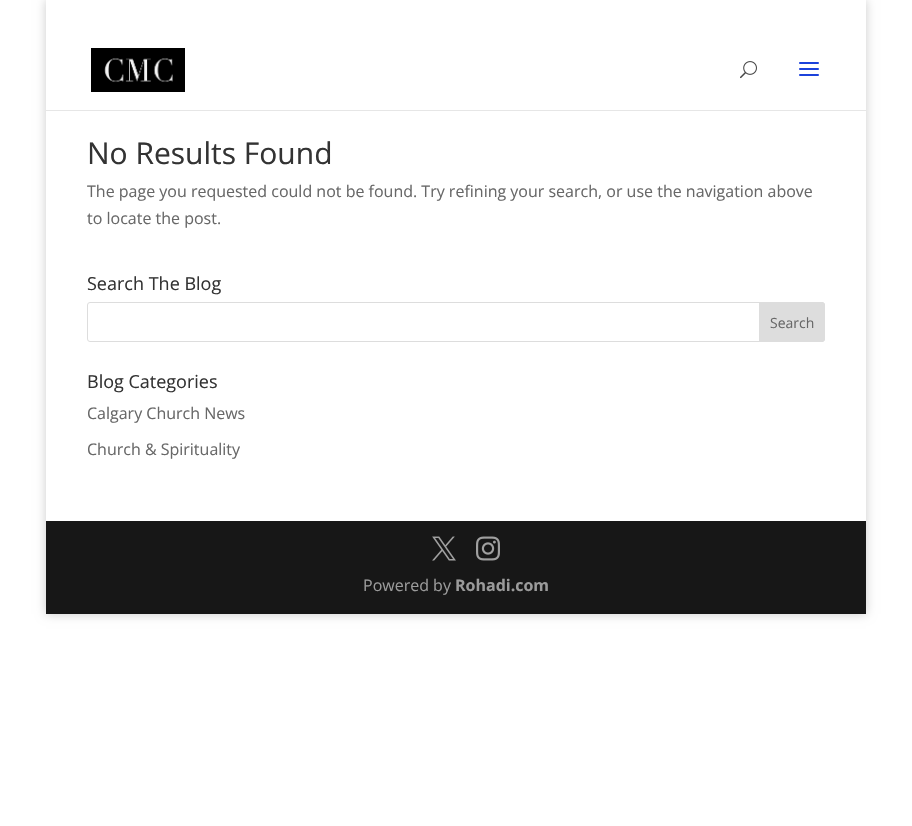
void draw(SkCanvas* canvas) {
    SkPaint paint;
    paint.setAntiAlias(true);
    auto face = [&](const char* family, int weight, float size, bool italic = false) {
        SkFontStyle style(weight, SkFontStyle::kNormal_Width,
            italic ? SkFontStyle::kItalic_Slant : SkFontStyle::kUpright_Slant);
        SkFont result(fontMgr->matchFamilyStyle(family, style), size);
        result.setSubpixel(true);
        return result;
    };
    auto write = [&](const char* s, float x, float y, const SkFont& font, SkColor color) {
        SkPaint ink(SkColor4f::FromColor(color));
        ink.setAntiAlias(true);
        canvas->drawString(s, x, y, font, ink);
    };
    auto block = [&](float x, float y, float w, float h, SkColor color) {
        SkPaint ink(SkColor4f::FromColor(color));
        ink.setAntiAlias(true);
        canvas->drawRect(SkRect::MakeXYWH(x, y, w, h), ink);
    };
    auto paste = [&](const char* path, float x, float y, float w, float h) {
        auto image = SkImages::DeferredFromEncodedData(SkData::MakeFromFileName(path));
        canvas->drawImageRect(image, SkRect::MakeXYWH(x, y, w, h), SkSamplingOptions());
    };
    canvas->clear(SK_ColorWHITE);
    canvas->save();
    canvas->clipPath(SkPathBuilder(SkPathFillType::kEvenOdd).moveTo(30, 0).lineTo(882, 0).lineTo(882, 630).lineTo(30, 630).close().moveTo(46, 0).lineTo(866, 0).lineTo(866, 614).lineTo(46, 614).close().detach(), true);
    paint.setColor(SkColorSetARGB(51, 0, 0, 0));
    paint.setMaskFilter(SkMaskFilter::MakeBlur(kNormal_SkBlurStyle, 5));
    canvas->drawRect(SkRect::MakeXYWH(46, 0, 820, 614), paint);
    paint.setMaskFilter(nullptr);
    canvas->restore();
    block(46, 110, 820, 1, SkColorSetRGB(230, 230, 230));
    paste("pic1.png", 91, 48, 94, 44);
    paste("pic2.png", 740, 61, 17, 18);
    paste("pic3.png", 799, 62, 20, 14);
    auto kFont1 = face("Open Sans", 400, 30);
    write("No Results Found", 87, 164, kFont1, SkColorSetRGB(51, 51, 51));
    auto kFont2 = face("Open Sans", 400, 16);
    write("The page you requested could not be found. Try refining your search, or use the navigation above", 87, 197, kFont2, SkColorSetRGB(104, 104, 104));
    write("to locate the post.", 87, 224, kFont2, SkColorSetRGB(104, 104, 104));
    auto kFont3 = face("Open Sans", 400, 18);
    write("Search The Blog", 87, 290, kFont3, SkColorSetRGB(51, 51, 51));
    paint.setStyle(SkPaint::kStroke_Style);
    paint.setStrokeWidth(1);
    paint.setColor(SkColorSetRGB(221, 221, 221));
    canvas->drawRoundRect(SkRect::MakeXYWH(87.5f, 302.5f, 737, 39), 2.5f, 2.5f, paint);
    paint.setStyle(SkPaint::kFill_Style);
    canvas->drawPath(SkPathBuilder().moveTo(759.5f, 302.5f).lineTo(822, 302.5f).cubicTo(823.5f, 302.5f, 824.5f, 303.5f, 824.5f, 305).lineTo(824.5f, 339).cubicTo(824.5f, 340.5f, 823.5f, 341.5f, 822, 341.5f).lineTo(759.5f, 341.5f).close().detach(), paint);
    paint.setStyle(SkPaint::kStroke_Style);
    canvas->drawPath(SkPathBuilder().moveTo(759.5f, 302.5f).lineTo(822, 302.5f).cubicTo(823.5f, 302.5f, 824.5f, 303.5f, 824.5f, 305).lineTo(824.5f, 339).cubicTo(824.5f, 340.5f, 823.5f, 341.5f, 822, 341.5f).lineTo(759.5f, 341.5f).close().detach(), paint);
    auto kFont4 = face("Open Sans", 400, 14);
    write("Search", 770, 328, kFont4, SkColorSetRGB(104, 104, 104));
    write("Blog Categories", 87, 388, kFont3, SkColorSetRGB(51, 51, 51));
    write("Calgary Church News", 87, 419, kFont2, SkColorSetRGB(104, 104, 104));
    write("Church & Spirituality", 87, 455, kFont2, SkColorSetRGB(104, 104, 104));
    block(46, 521, 820, 93, SkColorSetRGB(23, 23, 23));
    paste("pic4.png", 432, 536, 24, 25);
    paste("pic5.png", 476, 536, 24, 25);
    write("Powered by", 363, 591, kFont2, SkColorSetRGB(155, 155, 155));
    auto kFont5 = face("Open Sans", 700, 16);
    write("Rohadi.com", 455, 591, kFont5, SkColorSetRGB(155, 155, 155));
}
